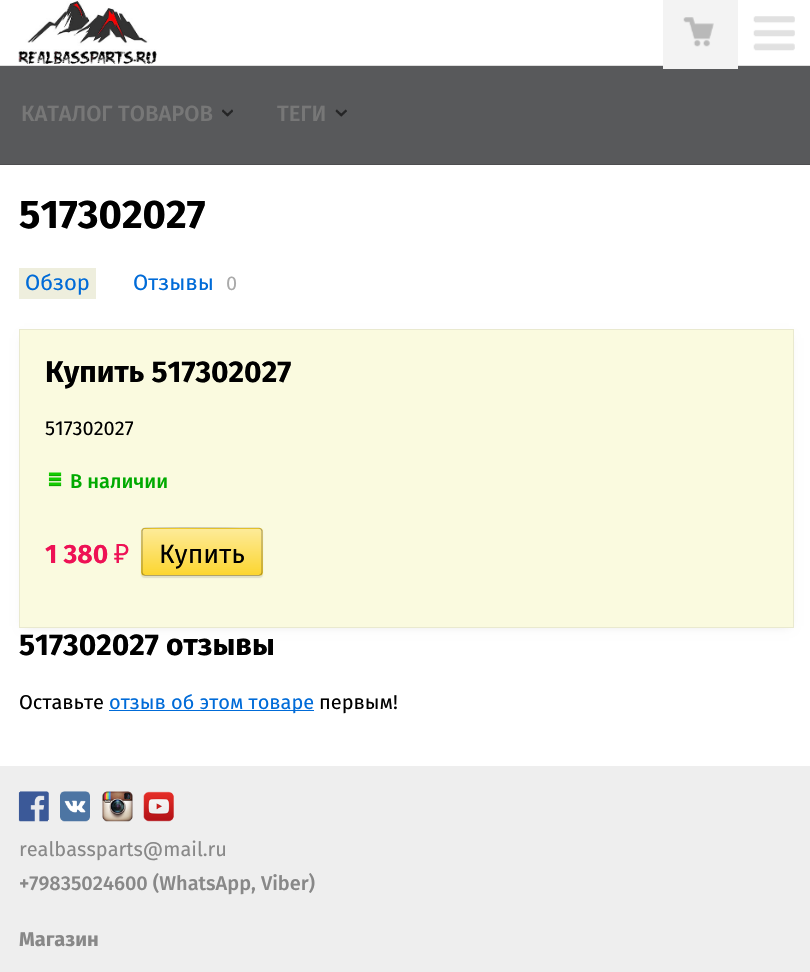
void draw(SkCanvas* canvas) {
    SkPaint paint;
    paint.setAntiAlias(true);
    auto face = [&](const char* family, int weight, float size, bool italic = false) {
        SkFontStyle style(weight, SkFontStyle::kNormal_Width,
            italic ? SkFontStyle::kItalic_Slant : SkFontStyle::kUpright_Slant);
        SkFont result(fontMgr->matchFamilyStyle(family, style), size);
        result.setSubpixel(true);
        return result;
    };
    auto write = [&](const char* s, float x, float y, const SkFont& font, SkColor color) {
        SkPaint ink(SkColor4f::FromColor(color));
        ink.setAntiAlias(true);
        canvas->drawString(s, x, y, font, ink);
    };
    auto block = [&](float x, float y, float w, float h, SkColor color) {
        SkPaint ink(SkColor4f::FromColor(color));
        ink.setAntiAlias(true);
        canvas->drawRect(SkRect::MakeXYWH(x, y, w, h), ink);
    };
    auto card = [&](float x, float y, float w, float h, float radius, SkColor color) {
        SkPaint ink(SkColor4f::FromColor(color));
        ink.setAntiAlias(true);
        canvas->drawRoundRect(SkRect::MakeXYWH(x, y, w, h), radius, radius, ink);
    };
    auto paste = [&](const char* path, float x, float y, float w, float h) {
        auto image = SkImages::DeferredFromEncodedData(SkData::MakeFromFileName(path));
        canvas->drawImageRect(image, SkRect::MakeXYWH(x, y, w, h), SkSamplingOptions());
    };
    canvas->clear(SkColorSetRGB(238, 238, 238));
    block(0, 66, 810, 98, SkColorSetRGB(88, 89, 91));
    block(0, 0, 810, 65, SK_ColorWHITE);
    block(0, 65, 810, 1, SkColorSetRGB(222, 222, 222));
    paste("pic1.png", 18, 1, 139, 63);
    block(663, 0, 75, 69, SkColorSetRGB(243, 243, 243));
    paste("pic2.png", 683, 17, 31, 30);
    paste("pic3.png", 753, 16, 42, 35);
    block(0, 164, 810, 1, SkColorSetRGB(77, 77, 79));
    paste("pic4.png", 222, 109, 11, 8);
    auto kFont1 = face("Fira Sans", 500, 22);
    write("КАТАЛОГ ТОВАРОВ", 21, 121, kFont1, SkColorSetRGB(119, 119, 119));
    paste("pic5.png", 335, 109, 12, 8);
    write("ТЕГИ", 277, 121, kFont1, SkColorSetRGB(119, 119, 119));
    block(0, 165, 810, 601, SK_ColorWHITE);
    auto kFont2 = face("Fira Sans", 700, 40);
    write("517302027", 19, 228, kFont2, SK_ColorBLACK);
    block(19, 268, 77, 31, SkColorSetRGB(238, 238, 221));
    auto kFont3 = face("Fira Sans", 400, 22);
    write("Обзор", 25, 290, kFont3, SkColorSetRGB(0, 107, 216));
    write("Отзывы", 133, 290, kFont3, SkColorSetRGB(0, 107, 216));
    auto kFont4 = face("Fira Sans", 400, 20);
    write("0", 226, 290, kFont4, SkColorSetRGB(170, 170, 170));
    paint.setColor(SkColorSetARGB(26, 0, 0, 0));
    paint.setMaskFilter(SkMaskFilter::MakeBlur(kNormal_SkBlurStyle, 5));
    canvas->drawRect(SkRect::MakeXYWH(24, 338, 765, 288), paint);
    paint.setMaskFilter(nullptr);
    paint.setColor(SkColorSetRGB(250, 250, 223));
    canvas->drawRect(SkRect::MakeXYWH(19.5f, 329.5f, 774, 298), paint);
    paint.setStyle(SkPaint::kStroke_Style);
    paint.setStrokeWidth(1);
    paint.setColor(SkColorSetRGB(233, 233, 207));
    canvas->drawRect(SkRect::MakeXYWH(19.5f, 329.5f, 774, 298), paint);
    auto kFont5 = face("Fira Sans", 700, 30);
    write("Купить 517302027", 45, 382, kFont5, SK_ColorBLACK);
    write("517302027", 45, 435, kFont4, SK_ColorBLACK);
    paste("pic6.png", 48, 472, 14, 15);
    auto kFont6 = face("Fira Sans", 500, 20);
    write("В наличии", 70, 488, kFont6, SkColorSetRGB(0, 170, 0));
    auto kFont7 = face("Fira Sans", 700, 26.5f);
    write("1 380", 45, 563, kFont7, SkColorSetRGB(238, 17, 85));
    auto kFont8 = face("Noto Sans", 400, 26.5f);
    write("₽", 114, 563, kFont8, SkColorSetRGB(238, 17, 85));
    paint.setStyle(SkPaint::kFill_Style);
    paint.setColor(SkColorSetARGB(26, 0, 0, 0));
    paint.setMaskFilter(SkMaskFilter::MakeBlur(kNormal_SkBlurStyle, 0.5f));
    canvas->drawRoundRect(SkRect::MakeXYWH(141, 529, 122, 49), 4, 4, paint);
    paint.setMaskFilter(nullptr);
    card(141, 528, 122, 48, 4, SkColorSetRGB(252, 214, 48));
    canvas->save();
    canvas->clipPath(SkPathBuilder().moveTo(145, 528).lineTo(259, 528).cubicTo(261, 528, 263, 530, 263, 532).lineTo(263, 572).cubicTo(263, 574, 261, 576, 259, 576).lineTo(145, 576).cubicTo(143, 576, 141, 574, 141, 572).lineTo(141, 532).cubicTo(141, 530, 143, 528, 145, 528).close().detach(), true);
    {
        const SkColor colors[] = {SkColorSetARGB(128, 255, 255, 255), SkColorSetARGB(0, 255, 255, 255)};
        const float stops[] = {0, 1};
        const SkPoint ends[] = {{202, 529}, {202, 575}};
        paint.setShader(SkGradientShader::MakeLinear(ends, colors, stops, 2, SkTileMode::kClamp));
        paint.setAlpha(255);
    }
    canvas->drawRect(SkRect::MakeXYWH(141, 529, 122, 44), paint);
    {
        const SkColor colors[] = {SkColorSetARGB(128, 255, 255, 255), SkColorSetARGB(0, 255, 255, 255)};
        const float stops[] = {0, 1};
        const SkPoint ends[] = {{202, 575}, {202, 621}};
        paint.setShader(SkGradientShader::MakeLinear(ends, colors, stops, 2, SkTileMode::kClamp));
        paint.setAlpha(255);
    }
    canvas->drawRect(SkRect::MakeXYWH(141, 575, 122, 1), paint);
    canvas->restore();
    paint.setStyle(SkPaint::kStroke_Style);
    paint.setStrokeWidth(1.2f);
    paint.setShader(nullptr);
    paint.setColor(SkColorSetARGB(51, 0, 0, 0));
    canvas->drawPath(SkPathBuilder().moveTo(143, 529).lineTo(143.5f, 528.5f).cubicTo(145.5f, 527, 230, 528, 240, 528).lineTo(259, 528).lineTo(261, 529).detach(), paint);
    paint.setColor(SkColorSetARGB(77, 0, 0, 0));
    canvas->drawPath(SkPathBuilder().moveTo(261, 529).lineTo(262, 531).lineTo(262, 572.5f).lineTo(261, 574.5f).lineTo(259, 575.5f).lineTo(145, 575.5f).lineTo(143, 574.5f).lineTo(142, 572.5f).lineTo(142, 531).lineTo(143, 529).detach(), paint);
    auto kFont9 = face("Fira Sans", 400, 26.5f);
    write("Купить", 159, 563, kFont9, SK_ColorBLACK);
    write("517302027 отзывы", 19, 655, kFont5, SK_ColorBLACK);
    write("Оставьте", 19, 709, kFont4, SK_ColorBLACK);
    block(109, 710, 205, 1, SkColorSetRGB(0, 107, 216));
    write("отзыв об этом товаре", 109, 709, kFont4, SkColorSetRGB(0, 107, 216));
    write("первым!", 319, 709, kFont4, SK_ColorBLACK);
    paste("pic7.png", 18, 791, 31, 31);
    paste("pic8.png", 60, 791, 30, 31);
    paste("pic9.png", 102, 791, 31, 31);
    paste("pic10.png", 143, 791, 31, 31);
    write("realbassparts@mail.ru", 19, 856, kFont4, SkColorSetRGB(136, 136, 136));
    write("+79835024600 (WhatsApp, Viber)", 19, 890, kFont6, SkColorSetRGB(136, 136, 136));
    auto kFont10 = face("Fira Sans", 700, 20);
    write("Магазин", 19, 946, kFont10, SkColorSetRGB(136, 136, 136));
}
